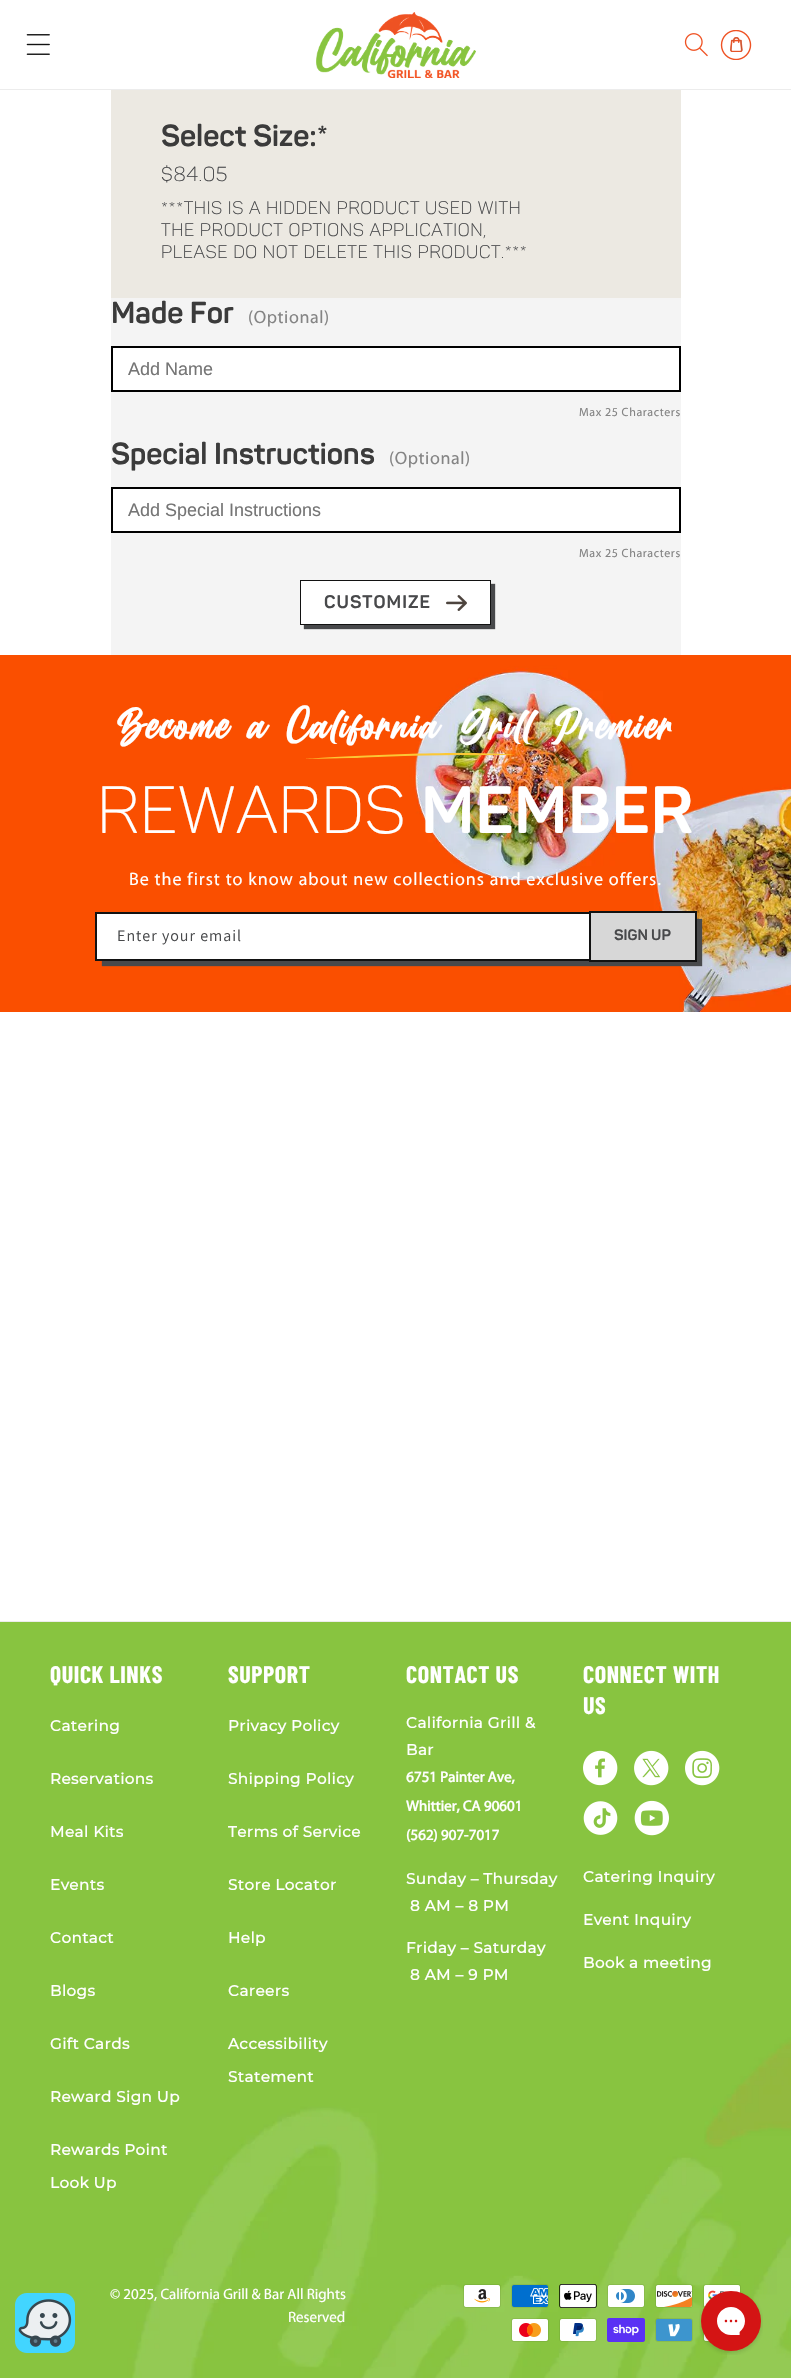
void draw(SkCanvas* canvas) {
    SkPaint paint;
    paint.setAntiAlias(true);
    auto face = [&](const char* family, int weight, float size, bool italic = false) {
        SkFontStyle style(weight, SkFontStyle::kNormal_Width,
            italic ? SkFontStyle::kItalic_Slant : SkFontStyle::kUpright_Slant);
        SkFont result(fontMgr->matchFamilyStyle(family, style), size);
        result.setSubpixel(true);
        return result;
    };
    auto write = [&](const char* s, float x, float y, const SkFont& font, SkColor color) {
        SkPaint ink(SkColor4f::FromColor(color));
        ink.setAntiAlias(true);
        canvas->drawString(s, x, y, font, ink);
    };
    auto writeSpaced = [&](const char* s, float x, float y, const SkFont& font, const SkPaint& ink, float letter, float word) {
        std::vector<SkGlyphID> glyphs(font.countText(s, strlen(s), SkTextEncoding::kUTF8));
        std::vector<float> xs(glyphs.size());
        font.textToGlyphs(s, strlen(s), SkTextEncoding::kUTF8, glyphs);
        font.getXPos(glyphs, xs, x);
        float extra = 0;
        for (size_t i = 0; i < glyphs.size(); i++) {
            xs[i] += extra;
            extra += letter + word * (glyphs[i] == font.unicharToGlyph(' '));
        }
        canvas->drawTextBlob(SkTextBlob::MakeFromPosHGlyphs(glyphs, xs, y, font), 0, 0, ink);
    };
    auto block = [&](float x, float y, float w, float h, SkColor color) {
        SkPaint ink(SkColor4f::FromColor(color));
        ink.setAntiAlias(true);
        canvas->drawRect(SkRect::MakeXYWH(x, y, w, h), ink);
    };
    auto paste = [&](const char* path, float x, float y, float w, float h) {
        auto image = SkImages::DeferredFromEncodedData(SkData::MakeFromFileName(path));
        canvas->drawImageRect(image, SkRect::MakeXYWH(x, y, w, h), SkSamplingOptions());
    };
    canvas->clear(SK_ColorWHITE);
    block(0, 89, 791, 1, SkColorSetRGB(236, 236, 236));
    paste("pic1.png", 26, 34, 24, 21);
    paste("pic2.png", 316, 12, 160, 66);
    paste("pic3.png", 684, 33, 24, 24);
    paste("pic4.png", 720, 30, 32, 30);
    block(111, 90, 570, 208, SkColorSetRGB(236, 233, 226));
    auto kFont1 = face("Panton", 700, 30);
    write("Select Size:*", 161, 146, kFont1, SkColorSetRGB(59, 59, 59));
    auto kFont2 = face("Panton", 300, 20);
    paint.setColor(SkColorSetRGB(72, 73, 75));
    writeSpaced("$84.05", 161, 181, kFont2, paint, 0.6f, 0);
    auto kFont3 = face("Panton", 300, 18);
    writeSpaced("***This is a hidden product used with", 161, 214, kFont3, paint, 0.6f, 0);
    writeSpaced("the Product Options application,", 161, 236, kFont3, paint, 0.6f, 0);
    writeSpaced("Please do not delete this product.***", 161, 258, kFont3, paint, 0.6f, 0);
    block(111, 298, 570, 357, SkColorSetRGB(244, 244, 244));
    write("Made For", 111, 323, kFont1, SkColorSetRGB(59, 59, 59));
    auto kFont4 = face("Myriad", 400, 18);
    paint.setColor(SkColorSetRGB(132, 132, 132));
    writeSpaced("(Optional)", 248, 323, kFont4, paint, 0.6f, 0);
    paint.setColor(SK_ColorWHITE);
    canvas->drawRect(SkRect::MakeXYWH(112, 347, 568, 44), paint);
    paint.setStyle(SkPaint::kStroke_Style);
    paint.setStrokeWidth(2);
    paint.setColor(SK_ColorBLACK);
    canvas->drawRect(SkRect::MakeXYWH(112, 347, 568, 44), paint);
    auto kFont5 = face("Liberation Sans", 400, 18);
    write("Add Name", 128, 375, kFont5, SkColorSetRGB(117, 117, 117));
    auto kFont6 = face("Myriad", 400, 12);
    paint.setStyle(SkPaint::kFill_Style);
    paint.setColor(SkColorSetRGB(132, 132, 132));
    writeSpaced("Max 25 Characters", 579, 416, kFont6, paint, 0.6f, 0);
    write("Special Instructions", 111, 464, kFont1, SkColorSetRGB(59, 59, 59));
    writeSpaced("(Optional)", 389, 464, kFont4, paint, 0.6f, 0);
    paint.setColor(SK_ColorWHITE);
    canvas->drawRect(SkRect::MakeXYWH(112, 488, 568, 44), paint);
    paint.setStyle(SkPaint::kStroke_Style);
    paint.setColor(SK_ColorBLACK);
    canvas->drawRect(SkRect::MakeXYWH(112, 488, 568, 44), paint);
    write("Add Special Instructions", 128, 516, kFont5, SkColorSetRGB(117, 117, 117));
    paint.setStyle(SkPaint::kFill_Style);
    paint.setColor(SkColorSetRGB(132, 132, 132));
    writeSpaced("Max 25 Characters", 579, 557, kFont6, paint, 0.6f, 0);
    paint.setColor(SkColorSetRGB(72, 73, 75));
    paint.setMaskFilter(SkMaskFilter::MakeBlur(kNormal_SkBlurStyle, 0.5f));
    canvas->drawRect(SkRect::MakeXYWH(304, 584, 191, 45), paint);
    paint.setMaskFilter(nullptr);
    block(301, 581, 189, 43, SK_ColorWHITE);
    paste("pic5.png", 446, 595, 21, 16);
    paint.setStyle(SkPaint::kStroke_Style);
    paint.setStrokeWidth(1);
    paint.setColor(SkColorSetRGB(18, 18, 18));
    canvas->drawRect(SkRect::MakeXYWH(300.5f, 580.5f, 190, 44), paint);
    auto kFont7 = face("Panton", 700, 18);
    paint.setStyle(SkPaint::kFill_Style);
    paint.setColor(SkColorSetRGB(72, 73, 75));
    writeSpaced("CUSTOMIZE", 324, 608, kFont7, paint, 1, 0);
    paste("pic6.png", 0, 655, 791, 357);
    auto kFont8 = face("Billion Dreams", 400, 45);
    paint.setColor(SK_ColorWHITE);
    writeSpaced("Become a California Grill Premier", 116, 742, kFont8, paint, 2, 0);
    paste("pic7.png", 306, 753, 208, 6);
    auto kFont9 = face("Panton", 300, 66);
    writeSpaced("REWARDS", 97, 833, kFont9, paint, 0.6f, 0);
    auto kFont10 = face("Panton", 700, 66);
    writeSpaced("MEMBER", 421, 833, kFont10, paint, 0.6f, 0);
    writeSpaced("Be the first to know about new collections and exclusive offers.", 129, 885, kFont4, paint, 1, 0);
    paint.setColor(SkColorSetRGB(72, 73, 75));
    paint.setMaskFilter(SkMaskFilter::MakeBlur(kNormal_SkBlurStyle, 0.5f));
    canvas->drawRect(SkRect::MakeXYWH(102, 919, 600, 47), paint);
    paint.setMaskFilter(nullptr);
    paint.setStyle(SkPaint::kStroke_Style);
    paint.setStrokeWidth(2);
    paint.setColor(SkColorSetRGB(18, 18, 18));
    canvas->drawRect(SkRect::MakeXYWH(96, 913, 600, 47), paint);
    block(97, 914, 492, 45, SK_ColorWHITE);
    auto kFont11 = face("Assistant", 400, 16);
    paint.setStyle(SkPaint::kFill_Style);
    paint.setColor(SkColorSetRGB(72, 73, 75));
    writeSpaced("Enter your email", 117, 941, kFont11, paint, 1, 0);
    paint.setStyle(SkPaint::kStroke_Style);
    paint.setColor(SkColorSetRGB(18, 18, 18));
    canvas->drawRect(SkRect::MakeXYWH(590, 912, 106, 49), paint);
    block(591, 913, 104, 47, SkColorSetRGB(215, 215, 215));
    auto kFont12 = face("Panton", 700, 15);
    write("SIGN UP", 614, 940, kFont12, SkColorSetRGB(72, 73, 75));
    paste("pic9.png", 0, 1622, 791, 756);
    paste("pic8.png", 15, 2293, 60, 60);
    block(0, 1621, 791, 1, SkColorSetRGB(236, 236, 236));
    auto kFont13 = face("Barlow Condensed", 700, 24);
    paint.setStyle(SkPaint::kFill_Style);
    paint.setColor(SK_ColorWHITE);
    writeSpaced("QUICK LINKS", 50, 1683, kFont13, paint, 0.6f, 0);
    auto kFont14 = face("Montserrat", 700, 15);
    writeSpaced("Catering", 50, 1731, kFont14, paint, 0.6f, 0);
    writeSpaced("Reservations", 50, 1784, kFont14, paint, 0.6f, 0);
    writeSpaced("Meal Kits", 50, 1837, kFont14, paint, 0.6f, 0);
    writeSpaced("Events", 50, 1890, kFont14, paint, 0.6f, 0);
    writeSpaced("Contact", 50, 1943, kFont14, paint, 0.6f, 0);
    writeSpaced("Blogs", 50, 1996, kFont14, paint, 0.6f, 0);
    writeSpaced("Gift Cards", 50, 2049, kFont14, paint, 0.6f, 0);
    writeSpaced("Reward Sign Up", 50, 2102, kFont14, paint, 0.6f, 0);
    writeSpaced("Rewards Point", 50, 2155, kFont14, paint, 0.6f, 0);
    writeSpaced("Look Up", 50, 2188, kFont14, paint, 0.6f, 0);
    writeSpaced("SUPPORT", 228, 1683, kFont13, paint, 0.6f, 0);
    writeSpaced("Privacy Policy", 228, 1731, kFont14, paint, 0.6f, 0);
    writeSpaced("Shipping Policy", 228, 1784, kFont14, paint, 0.6f, 0);
    writeSpaced("Terms of Service", 228, 1837, kFont14, paint, 0.6f, 0);
    writeSpaced("Store Locator", 228, 1890, kFont14, paint, 0.6f, 0);
    writeSpaced("Help", 228, 1943, kFont14, paint, 0.6f, 0);
    writeSpaced("Careers", 228, 1996, kFont14, paint, 0.6f, 0);
    writeSpaced("Accessibility", 228, 2049, kFont14, paint, 0.6f, 0);
    writeSpaced("Statement", 228, 2082, kFont14, paint, 0.6f, 0);
    writeSpaced("CONTACT US", 406, 1683, kFont13, paint, 0.6f, 0);
    writeSpaced("California Grill &", 406, 1728, kFont14, paint, 0.6f, 0);
    writeSpaced("Bar", 406, 1755, kFont14, paint, 0.6f, 0);
    auto kFont15 = face("Myriad", 700, 15);
    write("6751 Painter Ave,", 406, 1782, kFont15, SK_ColorWHITE);
    write("Whittier, CA 90601", 406, 1811, kFont15, SK_ColorWHITE);
    write("(562) 907-7017", 406, 1840, kFont15, SK_ColorWHITE);
    writeSpaced("Sunday – Thursday", 406, 1884, kFont14, paint, 0.6f, 0);
    writeSpaced("8 AM – 8 PM", 410, 1911, kFont14, paint, 0.6f, 0);
    writeSpaced("Friday – Saturday", 406, 1953, kFont14, paint, 0.6f, 0);
    writeSpaced("8 AM – 9 PM", 410, 1980, kFont14, paint, 0.6f, 0);
    writeSpaced("CONNECT WITH", 583, 1683, kFont13, paint, 0.6f, 0);
    writeSpaced("US", 583, 1714, kFont13, paint, 0.6f, 0);
    paste("pic10.png", 583, 1750, 35, 36);
    paste("pic11.png", 634, 1750, 35, 36);
    paste("pic12.png", 685, 1750, 35, 36);
    paste("pic13.png", 583, 1801, 35, 34);
    paste("pic14.png", 634, 1800, 35, 36);
    writeSpaced("Catering Inquiry", 583, 1882, kFont14, paint, 0.6f, 0);
    writeSpaced("Event Inquiry", 583, 1925, kFont14, paint, 0.6f, 0);
    writeSpaced("Book a meeting", 583, 1968, kFont14, paint, 0.6f, 0);
    auto kFont16 = face("Myriad", 400, 15);
    write("© 2025, California Grill & Bar All Rights", 110, 2299, kFont16, SK_ColorWHITE);
    write("Reserved", 288, 2322, kFont16, SK_ColorWHITE);
    paste("pic15.png", 463, 2284, 38, 24);
    paste("pic16.png", 511, 2284, 38, 24);
    paste("pic17.png", 559, 2284, 38, 24);
    paste("pic18.png", 607, 2284, 38, 24);
    paste("pic19.png", 655, 2284, 38, 24);
    paste("pic20.png", 703, 2284, 38, 24);
    paste("pic21.png", 511, 2318, 38, 24);
    paste("pic22.png", 559, 2318, 38, 24);
    paste("pic23.png", 607, 2318, 38, 24);
    paste("pic24.png", 655, 2318, 38, 24);
    paste("pic25.png", 703, 2331, 7, 11);
    paste("pic26.png", 699, 2291, 64, 64);
}
